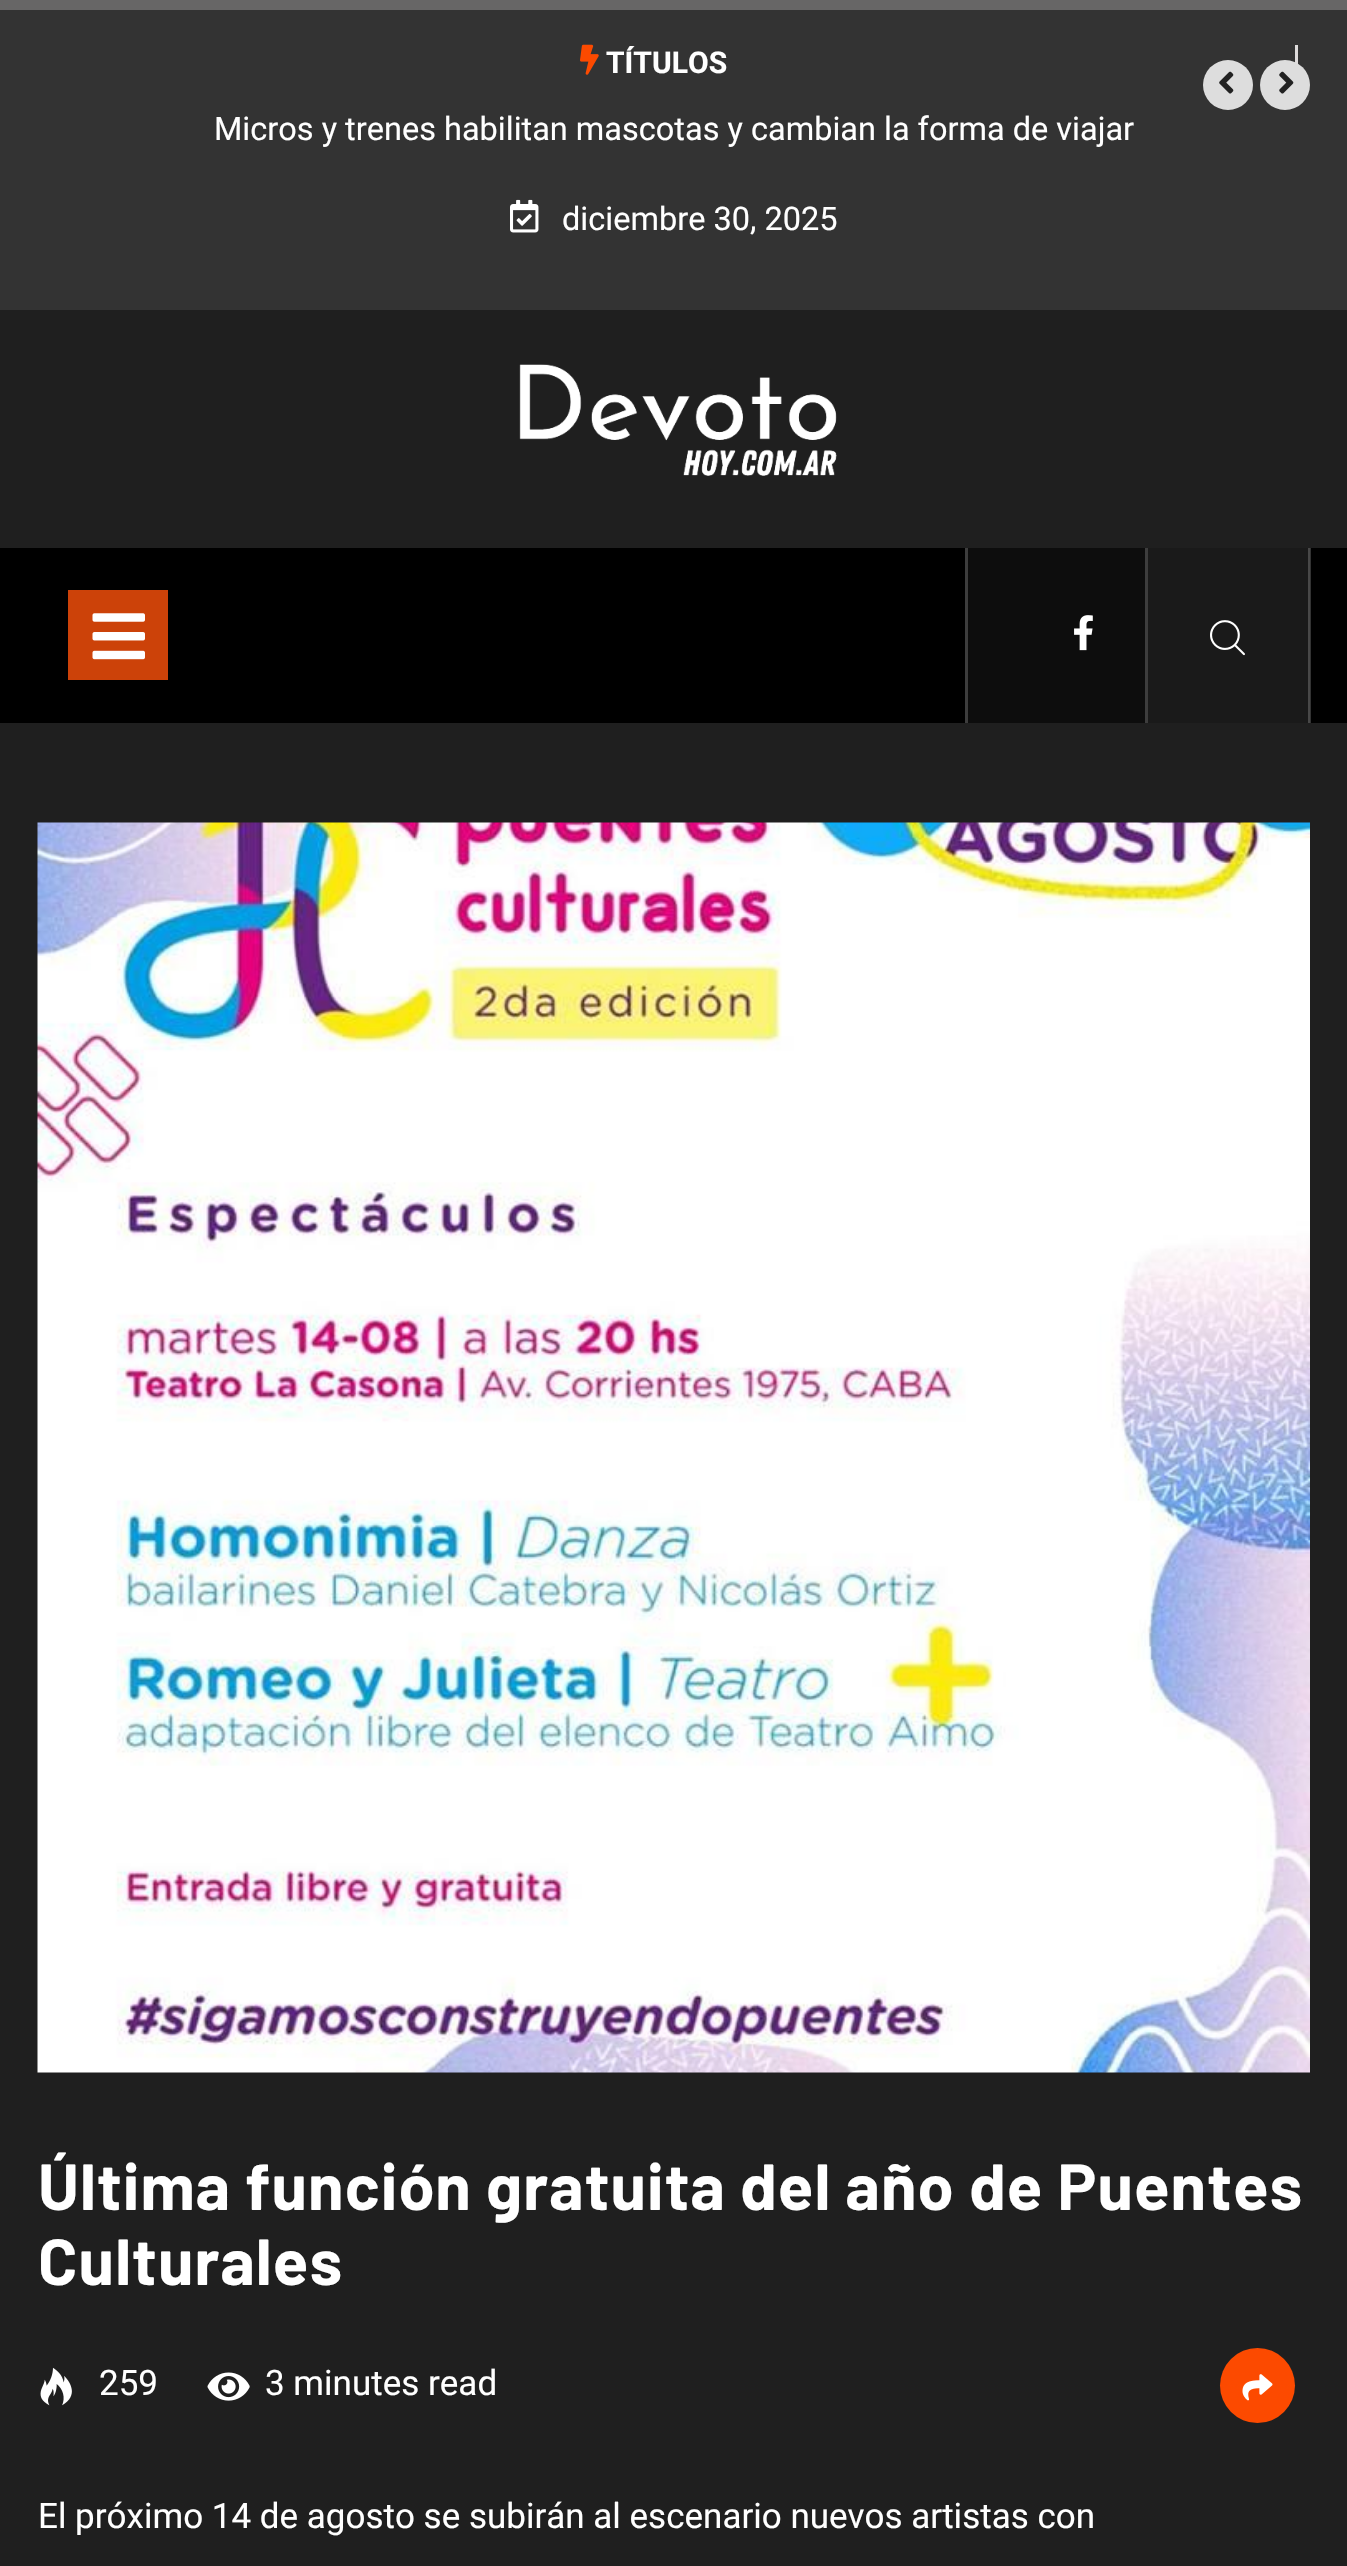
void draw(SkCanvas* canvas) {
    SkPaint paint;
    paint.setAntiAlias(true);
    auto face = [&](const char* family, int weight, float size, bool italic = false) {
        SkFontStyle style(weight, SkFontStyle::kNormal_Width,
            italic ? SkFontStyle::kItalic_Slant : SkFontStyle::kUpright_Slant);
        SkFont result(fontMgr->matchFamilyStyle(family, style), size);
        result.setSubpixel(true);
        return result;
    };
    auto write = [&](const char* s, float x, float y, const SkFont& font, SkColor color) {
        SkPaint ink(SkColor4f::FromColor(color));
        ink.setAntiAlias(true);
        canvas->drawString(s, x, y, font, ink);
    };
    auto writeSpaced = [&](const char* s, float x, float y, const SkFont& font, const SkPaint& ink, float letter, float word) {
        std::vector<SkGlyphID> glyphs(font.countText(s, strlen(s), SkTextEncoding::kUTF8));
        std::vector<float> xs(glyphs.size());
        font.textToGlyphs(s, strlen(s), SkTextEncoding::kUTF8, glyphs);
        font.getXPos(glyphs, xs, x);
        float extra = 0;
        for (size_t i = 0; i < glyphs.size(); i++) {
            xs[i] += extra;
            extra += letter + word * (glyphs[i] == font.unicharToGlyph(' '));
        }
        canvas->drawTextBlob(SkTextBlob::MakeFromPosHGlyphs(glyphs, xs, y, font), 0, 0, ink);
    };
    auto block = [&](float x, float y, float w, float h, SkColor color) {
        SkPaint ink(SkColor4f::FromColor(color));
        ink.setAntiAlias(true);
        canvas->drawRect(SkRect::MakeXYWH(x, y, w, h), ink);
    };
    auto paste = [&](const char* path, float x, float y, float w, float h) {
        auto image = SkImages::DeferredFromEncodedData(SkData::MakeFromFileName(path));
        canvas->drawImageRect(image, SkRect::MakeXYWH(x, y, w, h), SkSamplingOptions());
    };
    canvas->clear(SkColorSetRGB(31, 31, 31));
    block(0, 0, 1347, 10, SkColorSetRGB(103, 102, 102));
    block(0, 10, 1347, 300, SkColorSetRGB(51, 51, 51));
    block(1295, 45, 3, 19, SkColorSetRGB(222, 219, 219));
    paste("pic1.png", 580, 44, 19, 31);
    auto kFont1 = face("Roboto", 700, 30);
    write("TÍTULOS", 606, 73, kFont1, SK_ColorWHITE);
    paint.setColor(SkColorSetRGB(221, 221, 221));
    canvas->drawCircle(1228, 85, 25, paint);
    paste("pic2.png", 1219, 71, 15, 23);
    canvas->drawCircle(1285, 85, 25, paint);
    paste("pic3.png", 1279, 71, 15, 23);
    auto kFont2 = face("Roboto", 400, 32.5f);
    write("Micros y trenes habilitan mascotas y cambian la forma de viajar", 214, 140, kFont2, SK_ColorWHITE);
    paste("pic4.png", 510, 199, 29, 34);
    write("diciembre 30, 2025", 562, 230, kFont2, SK_ColorWHITE);
    paste("pic5.png", 519, 364, 318, 112);
    block(0, 548, 1347, 175, SK_ColorBLACK);
    block(1310, 548, 1, 175, SkColorSetRGB(51, 51, 51));
    block(68, 590, 100, 90, SkColorSetRGB(204, 66, 9));
    paste("pic6.png", 92, 613, 53, 47);
    block(968, 548, 177, 175, SkColorSetRGB(13, 13, 13));
    block(1145, 548, 3, 175, SkColorSetRGB(61, 61, 61));
    block(965, 548, 3, 175, SkColorSetRGB(61, 61, 61));
    paste("pic7.png", 1074, 615, 19, 36);
    block(1148, 548, 160, 175, SkColorSetRGB(26, 26, 26));
    block(1308, 548, 2, 175, SkColorSetRGB(72, 72, 72));
    paste("pic8.png", 1210, 620, 35, 36);
    paste("pic9.png", 37, 822, 1273, 1251);
    auto kFont3 = face("Barlow", 700, 65);
    paint.setColor(SK_ColorWHITE);
    writeSpaced("Última función gratuita del año de Puentes", 38, 2210, kFont3, paint, 1.1f, 0);
    writeSpaced("Culturales", 38, 2285, kFont3, paint, 1.1f, 0);
    paste("pic10.png", 40, 2367, 32, 39);
    auto kFont4 = face("Roboto", 400, 35);
    write("259", 99, 2395, kFont4, SK_ColorWHITE);
    paste("pic11.png", 207, 2372, 43, 29);
    write("3 minutes read", 265, 2395, kFont4, SK_ColorWHITE);
    paint.setColor(SkColorSetRGB(252, 74, 0));
    canvas->drawCircle(1257.5f, 2385.5f, 37.5f, paint);
    paste("pic12.png", 1242, 2374, 31, 27);
    write("El próximo 14 de agosto se subirán al escenario nuevos artistas con", 38, 2528, kFont4, SK_ColorWHITE);
}
